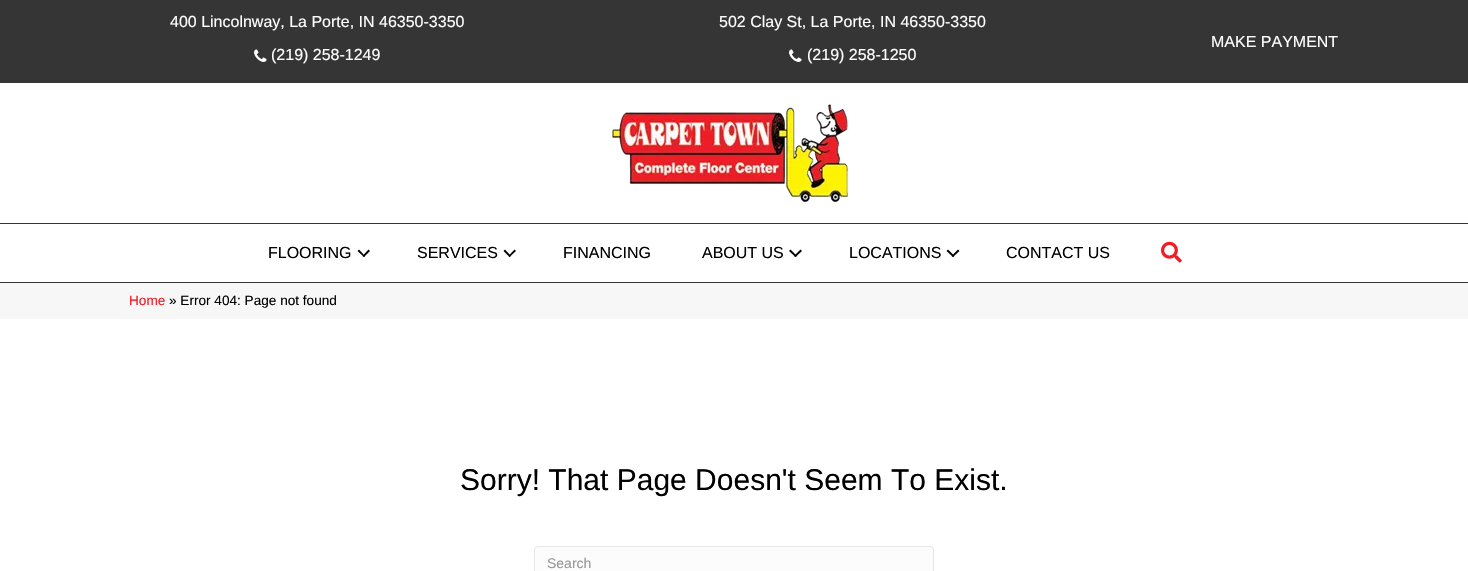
void draw(SkCanvas* canvas) {
    SkPaint paint;
    paint.setAntiAlias(true);
    auto face = [&](const char* family, int weight, float size, bool italic = false) {
        SkFontStyle style(weight, SkFontStyle::kNormal_Width,
            italic ? SkFontStyle::kItalic_Slant : SkFontStyle::kUpright_Slant);
        SkFont result(fontMgr->matchFamilyStyle(family, style), size);
        result.setSubpixel(true);
        return result;
    };
    auto write = [&](const char* s, float x, float y, const SkFont& font, SkColor color) {
        SkPaint ink(SkColor4f::FromColor(color));
        ink.setAntiAlias(true);
        canvas->drawString(s, x, y, font, ink);
    };
    auto block = [&](float x, float y, float w, float h, SkColor color) {
        SkPaint ink(SkColor4f::FromColor(color));
        ink.setAntiAlias(true);
        canvas->drawRect(SkRect::MakeXYWH(x, y, w, h), ink);
    };
    auto paste = [&](const char* path, float x, float y, float w, float h) {
        auto image = SkImages::DeferredFromEncodedData(SkData::MakeFromFileName(path));
        canvas->drawImageRect(image, SkRect::MakeXYWH(x, y, w, h), SkSamplingOptions());
    };
    canvas->clear(SK_ColorWHITE);
    block(0, 0, 1468, 83, SkColorSetRGB(53, 53, 53));
    auto kFont1 = face("Liberation Sans", 400, 16);
    write("400 Lincolnway, La Porte, IN 46350-3350", 170, 27, kFont1, SK_ColorWHITE);
    paste("pic1.png", 254, 49, 13, 13);
    write("(219) 258-1249", 271, 60, kFont1, SK_ColorWHITE);
    write("502 Clay St, La Porte, IN 46350-3350", 719, 27, kFont1, SK_ColorWHITE);
    paste("pic1.png", 789, 49, 13, 13);
    write("(219) 258-1250", 807, 60, kFont1, SK_ColorWHITE);
    write("MAKE PAYMENT", 1211, 47, kFont1, SK_ColorWHITE);
    paste("pic2.png", 612, 104, 236, 99);
    block(0, 223, 1468, 1, SkColorSetRGB(53, 53, 53));
    block(0, 282, 1468, 1, SkColorSetRGB(53, 53, 53));
    write("FLOORING", 268, 258, kFont1, SK_ColorBLACK);
    paint.setColor(SK_ColorBLACK);
    canvas->drawPath(SkPathBuilder().moveTo(368.5f, 249.5f).lineTo(370, 251).lineTo(364, 257).lineTo(362.5f, 256).close().detach(), paint);
    canvas->drawPath(SkPathBuilder().moveTo(359, 249.5f).lineTo(365, 256).lineTo(364, 257).lineTo(357.5f, 251).close().detach(), paint);
    write("SERVICES", 417, 258, kFont1, SK_ColorBLACK);
    canvas->drawPath(SkPathBuilder().moveTo(514.5f, 249.5f).lineTo(516, 251).lineTo(509.5f, 257).lineTo(508.5f, 256).close().detach(), paint);
    canvas->drawPath(SkPathBuilder().moveTo(505, 249.5f).lineTo(511, 256).lineTo(509.5f, 257).lineTo(503.5f, 251).close().detach(), paint);
    write("FINANCING", 563, 258, kFont1, SK_ColorBLACK);
    write("ABOUT US", 702, 258, kFont1, SK_ColorBLACK);
    canvas->drawPath(SkPathBuilder().moveTo(800.5f, 249.5f).lineTo(802, 251).lineTo(795.5f, 257).lineTo(794, 256).close().detach(), paint);
    canvas->drawPath(SkPathBuilder().moveTo(790.5f, 249.5f).lineTo(797, 256).lineTo(795.5f, 257).lineTo(789, 251).close().detach(), paint);
    write("LOCATIONS", 849, 258, kFont1, SK_ColorBLACK);
    canvas->drawPath(SkPathBuilder().moveTo(958, 249.5f).lineTo(959.5f, 251).lineTo(953, 257).lineTo(951.5f, 256).close().detach(), paint);
    canvas->drawPath(SkPathBuilder().moveTo(948, 249.5f).lineTo(954.5f, 256).lineTo(953, 257).lineTo(946.5f, 251).close().detach(), paint);
    write("CONTACT US", 1006, 258, kFont1, SK_ColorBLACK);
    paste("pic3.png", 1161, 241, 21, 22);
    block(0, 283, 1468, 36, SkColorSetRGB(247, 247, 247));
    auto kFont2 = face("Liberation Sans", 400, 13.6f);
    write("Home", 129, 305, kFont2, SkColorSetRGB(242, 28, 36));
    write("» Error 404: Page not found", 169, 305, kFont2, SK_ColorBLACK);
    auto kFont3 = face("Liberation Sans", 400, 30);
    write("Sorry! That Page Doesn't Seem To Exist.", 460, 490, kFont3, SK_ColorBLACK);
    paint.setColor(SkColorSetRGB(252, 252, 252));
    canvas->drawRoundRect(SkRect::MakeXYWH(534.5f, 546.5f, 399, 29), 3.5f, 3.5f, paint);
    paint.setStyle(SkPaint::kStroke_Style);
    paint.setStrokeWidth(1);
    paint.setColor(SkColorSetRGB(230, 230, 230));
    canvas->drawRoundRect(SkRect::MakeXYWH(534.5f, 546.5f, 399, 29), 3.5f, 3.5f, paint);
    auto kFont4 = face("Liberation Sans", 400, 14);
    write("Search", 547, 568, kFont4, SkColorSetRGB(151, 151, 151));
}
